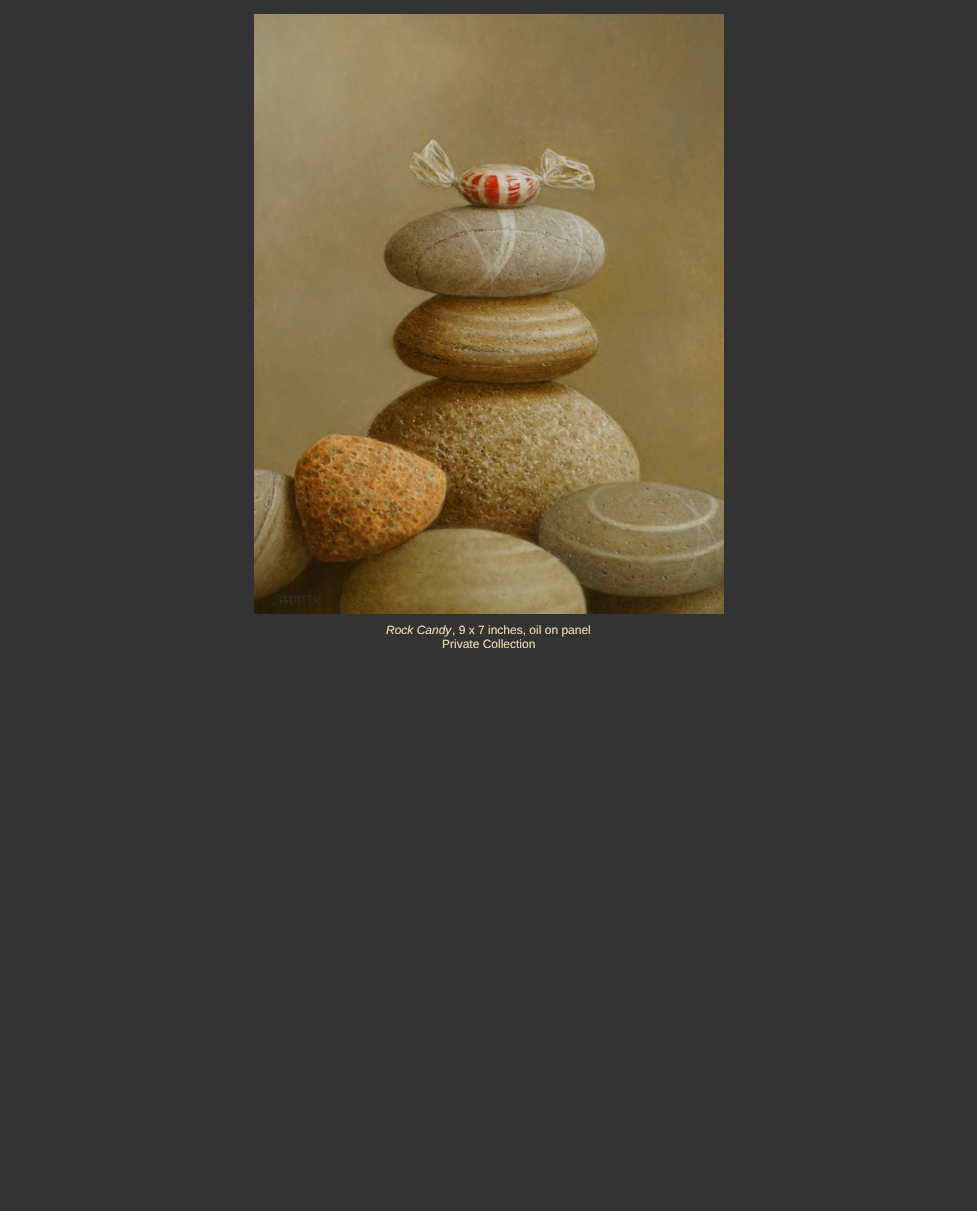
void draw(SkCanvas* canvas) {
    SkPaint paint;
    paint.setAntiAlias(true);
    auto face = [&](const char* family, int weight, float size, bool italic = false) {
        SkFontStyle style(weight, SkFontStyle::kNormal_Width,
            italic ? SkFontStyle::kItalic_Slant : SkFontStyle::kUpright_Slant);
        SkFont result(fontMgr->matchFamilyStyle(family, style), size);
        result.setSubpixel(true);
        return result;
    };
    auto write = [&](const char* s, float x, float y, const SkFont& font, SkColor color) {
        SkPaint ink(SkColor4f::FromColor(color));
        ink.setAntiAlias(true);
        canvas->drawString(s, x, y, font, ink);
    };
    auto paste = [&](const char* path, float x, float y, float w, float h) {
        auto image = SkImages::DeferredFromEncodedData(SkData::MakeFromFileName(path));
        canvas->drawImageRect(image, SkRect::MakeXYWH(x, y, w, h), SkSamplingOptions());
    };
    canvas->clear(SkColorSetRGB(51, 51, 51));
    paste("pic1.png", 254, 14, 470, 600);
    auto kFont1 = face("Liberation Sans", 400, 12, true);
    write("Rock Candy", 386, 634, kFont1, SkColorSetRGB(235, 218, 177));
    auto kFont2 = face("Liberation Sans", 400, 12);
    write(", 9 x 7 inches, oil on panel", 452, 634, kFont2, SkColorSetRGB(235, 218, 177));
    write("Private Collection", 442, 648, kFont2, SkColorSetRGB(235, 218, 177));
}
